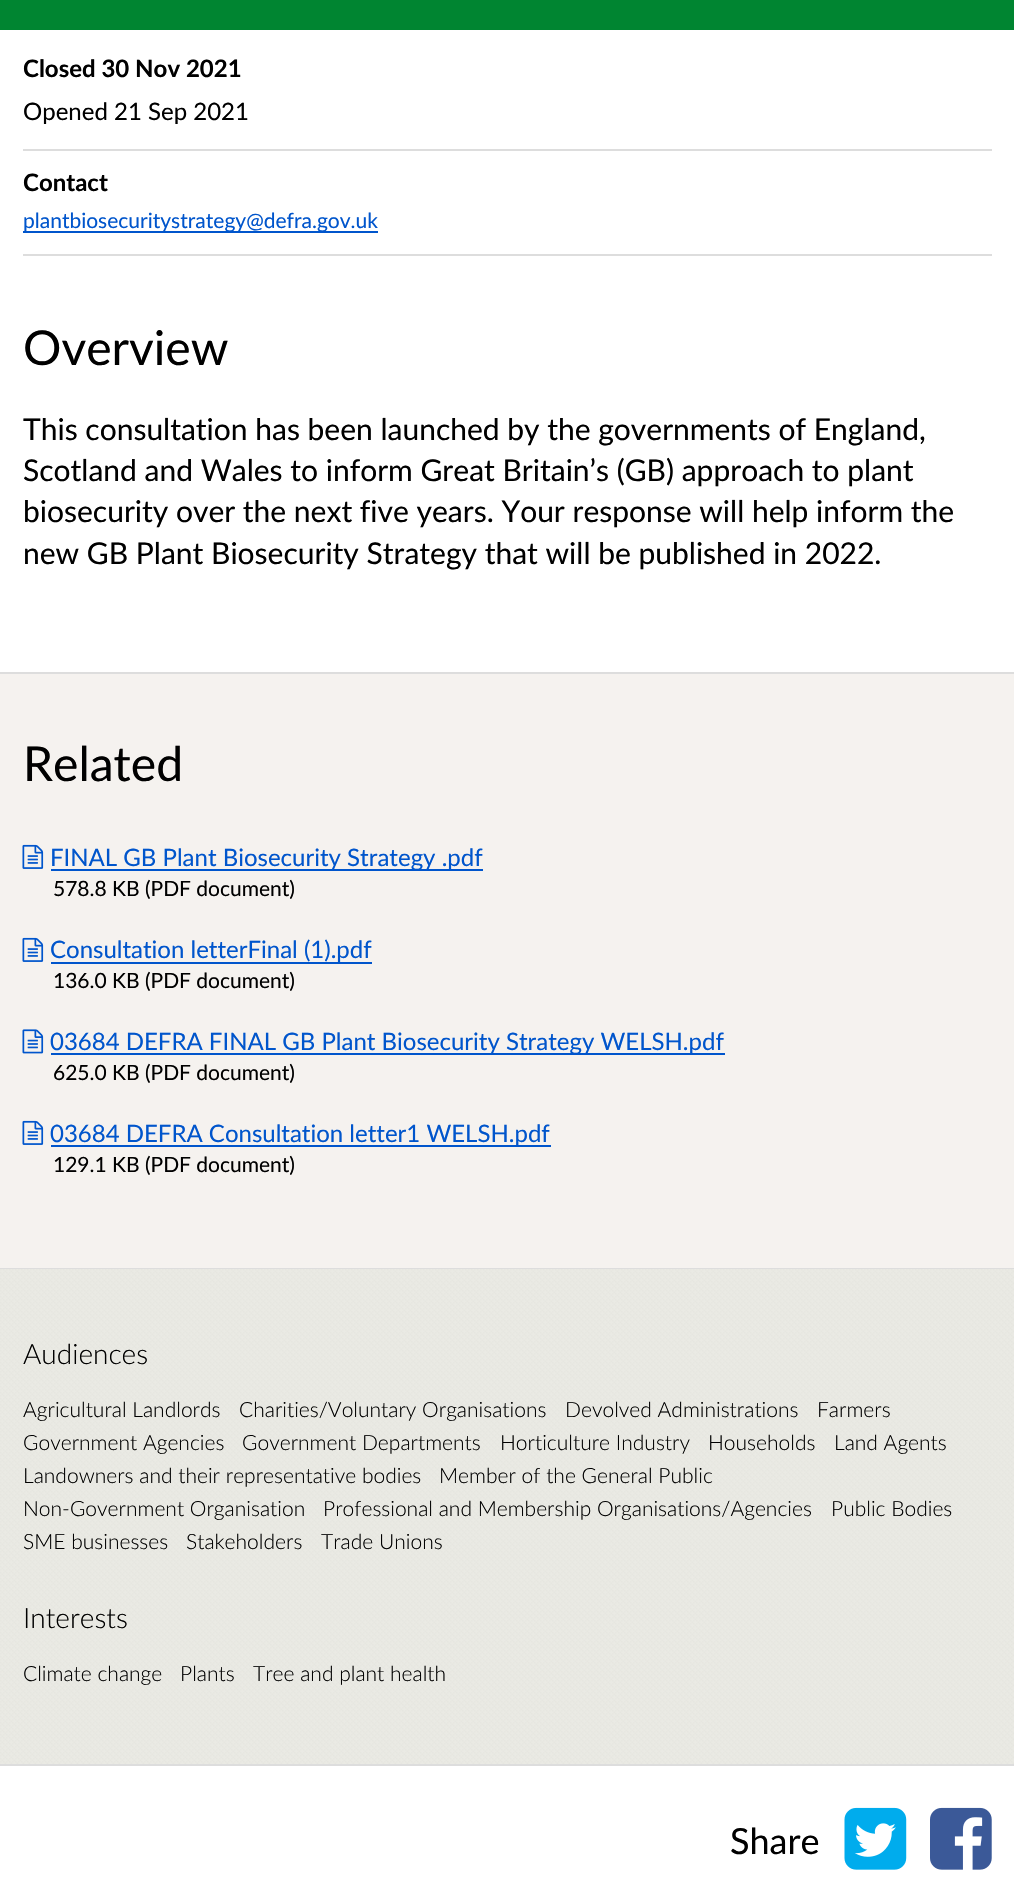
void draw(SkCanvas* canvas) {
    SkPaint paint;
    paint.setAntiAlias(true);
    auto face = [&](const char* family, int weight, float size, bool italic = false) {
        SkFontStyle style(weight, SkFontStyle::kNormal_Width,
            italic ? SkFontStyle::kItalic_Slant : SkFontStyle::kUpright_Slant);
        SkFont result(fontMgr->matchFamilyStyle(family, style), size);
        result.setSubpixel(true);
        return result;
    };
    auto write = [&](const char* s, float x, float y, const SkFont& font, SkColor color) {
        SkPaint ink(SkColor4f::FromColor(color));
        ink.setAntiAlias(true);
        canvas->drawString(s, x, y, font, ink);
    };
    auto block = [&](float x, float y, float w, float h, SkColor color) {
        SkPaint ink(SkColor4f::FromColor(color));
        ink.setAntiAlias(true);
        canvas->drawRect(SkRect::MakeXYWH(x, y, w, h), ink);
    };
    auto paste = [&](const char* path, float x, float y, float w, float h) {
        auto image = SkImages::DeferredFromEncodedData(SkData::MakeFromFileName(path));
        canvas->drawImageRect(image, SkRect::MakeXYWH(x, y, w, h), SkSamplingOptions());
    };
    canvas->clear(SK_ColorWHITE);
    block(0, 0, 1014, 30, SkColorSetRGB(0, 133, 49));
    block(23, 149, 969, 2, SkColorSetRGB(221, 221, 221));
    auto kFont1 = face("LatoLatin", 700, 24);
    write("Closed 30 Nov 2021", 23, 77, kFont1, SK_ColorBLACK);
    auto kFont2 = face("LatoLatin", 400, 24);
    write("Opened 21 Sep 2021", 23, 120, kFont2, SK_ColorBLACK);
    block(23, 254, 969, 2, SkColorSetRGB(221, 221, 221));
    write("Contact", 23, 191, kFont1, SK_ColorBLACK);
    block(23, 231, 355, 2, SkColorSetRGB(0, 85, 204));
    auto kFont3 = face("LatoLatin", 400, 21);
    write("plantbiosecuritystrategy@defra.gov.uk", 23, 228, kFont3, SkColorSetRGB(0, 85, 204));
    auto kFont4 = face("LatoLatin", 400, 48);
    write("Overview", 23, 365, kFont4, SK_ColorBLACK);
    auto kFont5 = face("LatoLatin", 400, 30);
    write("This consultation has been launched by the governments of England,", 23, 440, kFont5, SK_ColorBLACK);
    write("Scotland and Wales to inform Great Britain’s (GB) approach to plant", 23, 481, kFont5, SK_ColorBLACK);
    write("biosecurity over the next five years. Your response will help inform the", 23, 522, kFont5, SK_ColorBLACK);
    write("new GB Plant Biosecurity Strategy that will be published in 2022.", 23, 564, kFont5, SK_ColorBLACK);
    block(0, 672, 1014, 2, SkColorSetRGB(221, 221, 221));
    block(0, 1268, 1014, 1, SkColorSetRGB(221, 221, 221));
    block(0, 674, 1014, 594, SkColorSetRGB(245, 242, 239));
    write("Related", 23, 781, kFont4, SK_ColorBLACK);
    paste("pic1.png", 22, 844, 22, 25);
    block(51, 869, 432, 2, SkColorSetRGB(0, 85, 204));
    write("FINAL GB Plant Biosecurity Strategy .pdf", 50, 866, kFont2, SkColorSetRGB(0, 85, 204));
    write("578.8 KB (PDF document)", 53, 896, kFont3, SK_ColorBLACK);
    paste("pic1.png", 22, 937, 22, 25);
    block(51, 962, 321, 2, SkColorSetRGB(0, 85, 204));
    write("Consultation letterFinal (1).pdf", 50, 958, kFont2, SkColorSetRGB(0, 85, 204));
    write("136.0 KB (PDF document)", 53, 988, kFont3, SK_ColorBLACK);
    paste("pic2.png", 22, 1029, 22, 25);
    block(51, 1053, 674, 2, SkColorSetRGB(0, 85, 204));
    write("03684 DEFRA FINAL GB Plant Biosecurity Strategy WELSH.pdf", 50, 1050, kFont2, SkColorSetRGB(0, 85, 204));
    write("625.0 KB (PDF document)", 53, 1080, kFont3, SK_ColorBLACK);
    paste("pic1.png", 22, 1120, 22, 25);
    block(51, 1145, 500, 2, SkColorSetRGB(0, 85, 204));
    write("03684 DEFRA Consultation letter1 WELSH.pdf", 50, 1142, kFont2, SkColorSetRGB(0, 85, 204));
    write("129.1 KB (PDF document)", 53, 1172, kFont3, SK_ColorBLACK);
    block(0, 1764, 1014, 2, SkColorSetRGB(221, 221, 221));
    paste("pic3.png", 0, 1269, 1014, 495);
    auto kFont6 = face("LatoLatin", 300, 28);
    write("Audiences", 23, 1364, kFont6, SK_ColorBLACK);
    auto kFont7 = face("LatoLatin", 300, 21);
    write("Agricultural Landlords", 23, 1417, kFont7, SK_ColorBLACK);
    write("Charities/Voluntary Organisations", 239, 1417, kFont7, SK_ColorBLACK);
    write("Devolved Administrations", 565, 1417, kFont7, SK_ColorBLACK);
    write("Farmers", 817, 1417, kFont7, SK_ColorBLACK);
    write("Government Agencies", 23, 1450, kFont7, SK_ColorBLACK);
    write("Government Departments", 242, 1450, kFont7, SK_ColorBLACK);
    write("Horticulture Industry", 500, 1450, kFont7, SK_ColorBLACK);
    write("Households", 708, 1450, kFont7, SK_ColorBLACK);
    write("Land Agents", 834, 1450, kFont7, SK_ColorBLACK);
    write("Landowners and their representative bodies", 23, 1483, kFont7, SK_ColorBLACK);
    write("Member of the General Public", 439, 1483, kFont7, SK_ColorBLACK);
    write("Non-Government Organisation", 23, 1516, kFont7, SK_ColorBLACK);
    write("Professional and Membership Organisations/Agencies", 323, 1516, kFont7, SK_ColorBLACK);
    write("Public Bodies", 831, 1516, kFont7, SK_ColorBLACK);
    write("SME businesses", 23, 1549, kFont7, SK_ColorBLACK);
    write("Stakeholders", 186, 1549, kFont7, SK_ColorBLACK);
    write("Trade Unions", 321, 1549, kFont7, SK_ColorBLACK);
    write("Interests", 23, 1628, kFont6, SK_ColorBLACK);
    write("Climate change", 23, 1681, kFont7, SK_ColorBLACK);
    write("Plants", 180, 1681, kFont7, SK_ColorBLACK);
    write("Tree and plant health", 253, 1681, kFont7, SK_ColorBLACK);
    auto kFont8 = face("LatoLatin", 400, 36);
    write("Share", 730, 1854, kFont8, SK_ColorBLACK);
    paste("pic4.png", 844, 1807, 63, 63);
    paste("pic5.png", 930, 1807, 62, 63);
}
